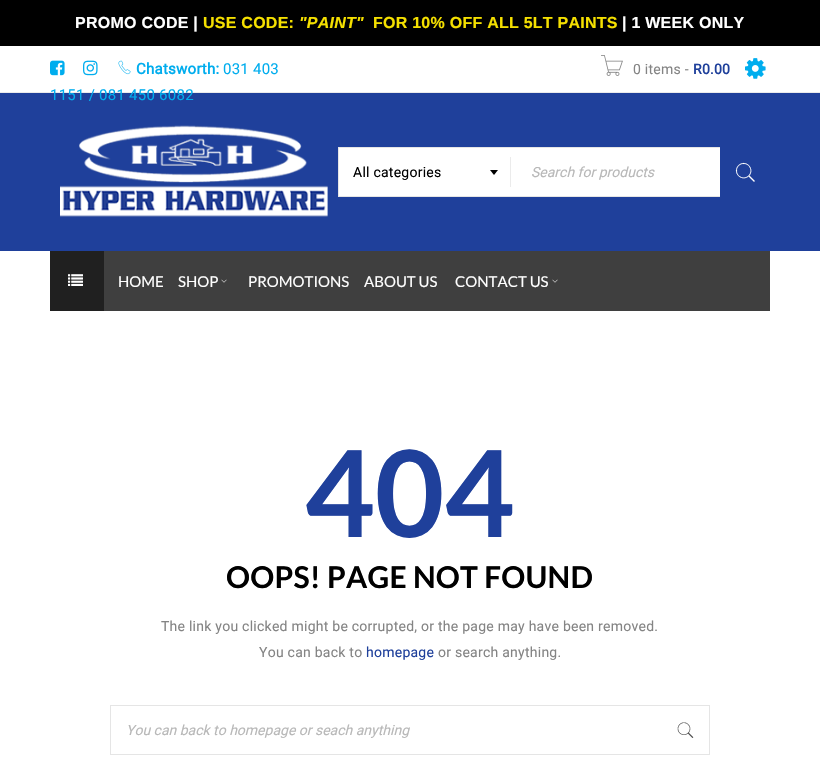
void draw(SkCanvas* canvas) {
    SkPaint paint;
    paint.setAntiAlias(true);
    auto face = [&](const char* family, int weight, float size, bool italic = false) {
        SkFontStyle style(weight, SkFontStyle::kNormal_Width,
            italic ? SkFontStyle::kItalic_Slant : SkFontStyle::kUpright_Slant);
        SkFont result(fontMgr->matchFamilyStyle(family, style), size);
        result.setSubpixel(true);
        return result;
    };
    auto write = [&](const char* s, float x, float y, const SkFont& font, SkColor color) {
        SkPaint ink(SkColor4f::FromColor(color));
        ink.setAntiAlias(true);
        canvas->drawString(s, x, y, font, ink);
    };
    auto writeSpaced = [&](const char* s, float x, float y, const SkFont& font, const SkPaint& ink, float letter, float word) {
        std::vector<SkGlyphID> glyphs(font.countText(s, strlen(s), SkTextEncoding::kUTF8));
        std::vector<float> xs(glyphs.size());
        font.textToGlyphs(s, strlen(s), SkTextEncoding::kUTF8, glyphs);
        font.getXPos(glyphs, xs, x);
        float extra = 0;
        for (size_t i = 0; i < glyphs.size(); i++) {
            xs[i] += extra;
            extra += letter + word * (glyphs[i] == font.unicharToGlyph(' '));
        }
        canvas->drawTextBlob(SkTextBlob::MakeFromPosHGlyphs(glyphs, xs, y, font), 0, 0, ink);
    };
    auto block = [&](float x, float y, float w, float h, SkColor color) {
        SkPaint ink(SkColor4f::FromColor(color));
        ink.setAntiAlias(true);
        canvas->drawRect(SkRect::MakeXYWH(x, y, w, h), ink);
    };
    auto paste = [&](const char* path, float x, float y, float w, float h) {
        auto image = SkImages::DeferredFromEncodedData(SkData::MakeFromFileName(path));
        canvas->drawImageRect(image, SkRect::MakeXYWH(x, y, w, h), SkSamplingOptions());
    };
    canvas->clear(SK_ColorWHITE);
    block(0, 0, 820, 46, SK_ColorBLACK);
    auto kFont1 = face("Liberation Sans", 700, 16);
    paint.setColor(SK_ColorWHITE);
    writeSpaced("PROMO CODE |", 75, 28, kFont1, paint, 0.25f, 0);
    paint.setColor(SkColorSetRGB(245, 224, 0));
    writeSpaced("USE CODE:", 203, 28, kFont1, paint, 0.25f, 0);
    auto kFont2 = face("Liberation Sans", 700, 16, true);
    writeSpaced("\"PAINT\"", 299, 28, kFont2, paint, 0.25f, 0);
    writeSpaced("FOR 10% OFF ALL 5LT PAINTS", 373, 28, kFont1, paint, 0.25f, 0);
    paint.setColor(SK_ColorWHITE);
    writeSpaced("| 1 WEEK ONLY", 622, 28, kFont1, paint, 0.25f, 0);
    block(0, 92, 820, 1, SkColorSetRGB(235, 235, 235));
    paste("pic1.png", 50, 60, 15, 16);
    paste("pic2.png", 83, 60, 15, 16);
    paste("pic3.png", 118, 60, 13, 15);
    auto kFont3 = face("Roboto", 700, 15);
    paint.setColor(SkColorSetRGB(0, 173, 238));
    writeSpaced("Chatsworth:", 136, 74, kFont3, paint, 0.25f, 0);
    auto kFont4 = face("Roboto", 400, 15);
    writeSpaced("031 403", 223, 74, kFont4, paint, 0.25f, 0);
    block(0, 93, 820, 158, SkColorSetRGB(31, 64, 155));
    writeSpaced("1151 / 081 450 6082", 50, 100, kFont4, paint, 0.25f, 0);
    paste("pic4.png", 601, 55, 22, 21);
    auto kFont5 = face("Roboto", 400, 14);
    paint.setColor(SkColorSetRGB(132, 132, 132));
    writeSpaced("0 items -", 633, 74, kFont5, paint, 0.25f, 0);
    auto kFont6 = face("Roboto", 700, 14);
    paint.setColor(SkColorSetRGB(31, 64, 155));
    writeSpaced("R0.00", 693, 74, kFont6, paint, 0.25f, 0);
    paste("pic5.png", 745, 58, 21, 21);
    paste("pic6.png", 60, 125, 268, 92);
    block(339, 148, 381, 48, SK_ColorWHITE);
    paint.setStyle(SkPaint::kStroke_Style);
    paint.setStrokeWidth(1);
    paint.setColor(SkColorSetRGB(229, 229, 229));
    canvas->drawRect(SkRect::MakeXYWH(338.5f, 147.5f, 431, 49), paint);
    paint.setStyle(SkPaint::kFill_Style);
    paint.setColor(SK_ColorBLACK);
    writeSpaced("All categories", 353, 177, kFont5, paint, 0.25f, 0);
    block(510, 157, 1, 30, SkColorSetRGB(235, 235, 235));
    canvas->drawPath(SkPathBuilder().moveTo(490, 170).lineTo(498, 170).lineTo(494, 175).close().detach(), paint);
    auto kFont7 = face("Roboto", 400, 14, true);
    write("Search for products", 531, 177, kFont7, SkColorSetRGB(184, 184, 184));
    block(720, 147, 50, 50, SkColorSetRGB(31, 64, 155));
    paste("pic7.png", 735, 162, 20, 20);
    block(104, 251, 666, 60, SkColorSetRGB(63, 63, 63));
    block(50, 251, 54, 60, SkColorSetRGB(32, 32, 32));
    paste("pic8.png", 68, 274, 15, 12);
    auto kFont8 = face("Lato", 400, 15);
    write("HOME", 118, 287, kFont8, SK_ColorWHITE);
    write("SHOP", 178, 287, kFont8, SK_ColorWHITE);
    paste("pic9.png", 221, 279, 6, 4);
    write("PROMOTIONS", 248, 287, kFont8, SK_ColorWHITE);
    write("ABOUT US", 364, 287, kFont8, SK_ColorWHITE);
    write("CONTACT US", 455, 287, kFont8, SK_ColorWHITE);
    paste("pic9.png", 552, 279, 6, 4);
    auto kFont9 = face("Lato", 700, 120);
    paint.setColor(SkColorSetRGB(31, 64, 155));
    writeSpaced("404", 305, 537, kFont9, paint, 0.25f, 0);
    auto kFont10 = face("Lato", 700, 30);
    paint.setColor(SK_ColorBLACK);
    writeSpaced("OOPS! PAGE NOT FOUND", 226, 588, kFont10, paint, 0.25f, 0);
    paint.setColor(SkColorSetRGB(132, 132, 132));
    writeSpaced("The link you clicked might be corrupted, or the page may have been removed.", 161, 631, kFont5, paint, 0.25f, 0);
    writeSpaced("You can back to", 259, 657, kFont5, paint, 0.25f, 0);
    paint.setColor(SkColorSetRGB(31, 64, 155));
    writeSpaced("homepage", 366, 657, kFont5, paint, 0.25f, 0);
    paint.setColor(SkColorSetRGB(132, 132, 132));
    writeSpaced("or search anything.", 438, 657, kFont5, paint, 0.25f, 0);
    paint.setStyle(SkPaint::kStroke_Style);
    paint.setColor(SkColorSetRGB(229, 229, 229));
    canvas->drawRect(SkRect::MakeXYWH(110.5f, 705.5f, 599, 49), paint);
    write("You can back to homepage or seach anything", 126, 735, kFont7, SkColorSetRGB(184, 184, 184));
    paste("pic10.png", 677, 722, 17, 16);
}
